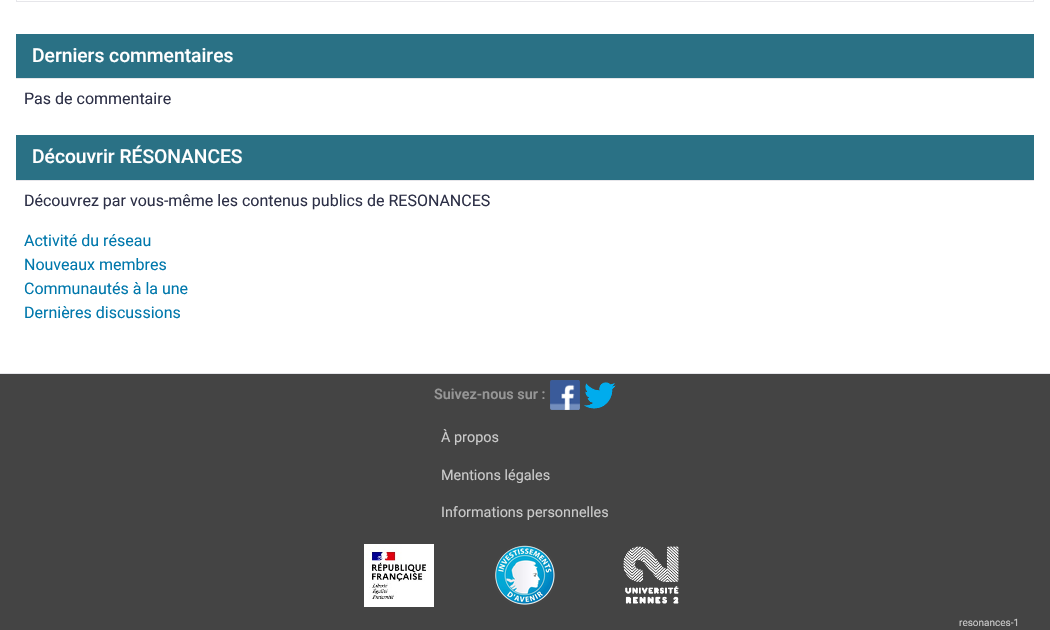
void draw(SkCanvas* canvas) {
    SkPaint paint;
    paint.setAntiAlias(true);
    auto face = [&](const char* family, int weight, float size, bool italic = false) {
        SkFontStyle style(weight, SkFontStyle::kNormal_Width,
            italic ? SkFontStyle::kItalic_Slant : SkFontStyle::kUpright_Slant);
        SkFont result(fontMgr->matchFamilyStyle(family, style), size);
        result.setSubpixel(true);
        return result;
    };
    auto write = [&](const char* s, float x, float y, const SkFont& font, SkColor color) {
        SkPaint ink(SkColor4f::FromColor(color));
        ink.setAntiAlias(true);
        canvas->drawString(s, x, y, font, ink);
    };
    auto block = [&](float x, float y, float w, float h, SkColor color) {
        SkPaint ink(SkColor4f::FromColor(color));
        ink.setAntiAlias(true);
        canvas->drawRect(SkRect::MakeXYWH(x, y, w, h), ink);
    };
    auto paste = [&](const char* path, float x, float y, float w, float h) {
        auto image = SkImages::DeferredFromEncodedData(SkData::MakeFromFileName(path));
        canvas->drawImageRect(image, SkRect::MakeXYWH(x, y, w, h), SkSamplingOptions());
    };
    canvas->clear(SK_ColorWHITE);
    paint.setStyle(SkPaint::kStroke_Style);
    paint.setStrokeWidth(1);
    paint.setColor(SkColorSetRGB(230, 230, 234));
    canvas->drawRect(SkRect::MakeXYWH(16.5f, -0.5f, 1017, 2), paint);
    block(16, 34, 1018, 44, SkColorSetRGB(42, 113, 133));
    block(16, 78, 1018, 1, SkColorSetRGB(230, 230, 234));
    auto kFont1 = face("Roboto", 500, 19.25f);
    write("Derniers commentaires", 32, 62, kFont1, SK_ColorWHITE);
    auto kFont2 = face("Roboto", 400, 16);
    write("Pas de commentaire", 24, 104, kFont2, SkColorSetRGB(45, 48, 71));
    block(16, 135, 1018, 45, SkColorSetRGB(42, 113, 133));
    block(16, 180, 1018, 1, SkColorSetRGB(230, 230, 234));
    write("Découvrir RÉSONANCES", 32, 163, kFont1, SK_ColorWHITE);
    write("Découvrez par vous-même les contenus publics de RESONANCES", 24, 206, kFont2, SkColorSetRGB(45, 48, 71));
    write("Activité du réseau", 24, 246, kFont2, SkColorSetRGB(0, 120, 172));
    write("Nouveaux membres", 24, 270, kFont2, SkColorSetRGB(0, 120, 172));
    write("Communautés à la une", 24, 294, kFont2, SkColorSetRGB(0, 120, 172));
    write("Dernières discussions", 24, 318, kFont2, SkColorSetRGB(0, 120, 172));
    block(0, 374, 1050, 256, SkColorSetRGB(68, 68, 68));
    block(0, 373, 1050, 1, SkColorSetRGB(230, 230, 234));
    auto kFont3 = face("Roboto", 600, 14.4f);
    write("Suivez-nous sur :", 434, 399, kFont3, SkColorSetRGB(150, 150, 150));
    paste("pic1.png", 550, 380, 30, 30);
    paste("pic2.png", 584, 382, 32, 27);
    auto kFont4 = face("Roboto", 400, 14.4f);
    write("À propos", 441, 442, kFont4, SkColorSetRGB(202, 202, 202));
    write("Mentions légales", 441, 480, kFont4, SkColorSetRGB(202, 202, 202));
    write("Informations personnelles", 441, 517, kFont4, SkColorSetRGB(202, 202, 202));
    paste("pic3.png", 364, 544, 70, 63);
    paste("pic4.png", 495, 545, 60, 60);
    paste("pic5.png", 623, 546, 56, 58);
    auto kFont5 = face("Roboto", 400, 10);
    write("resonances-1", 959, 626, kFont5, SkColorSetRGB(202, 202, 202));
}
